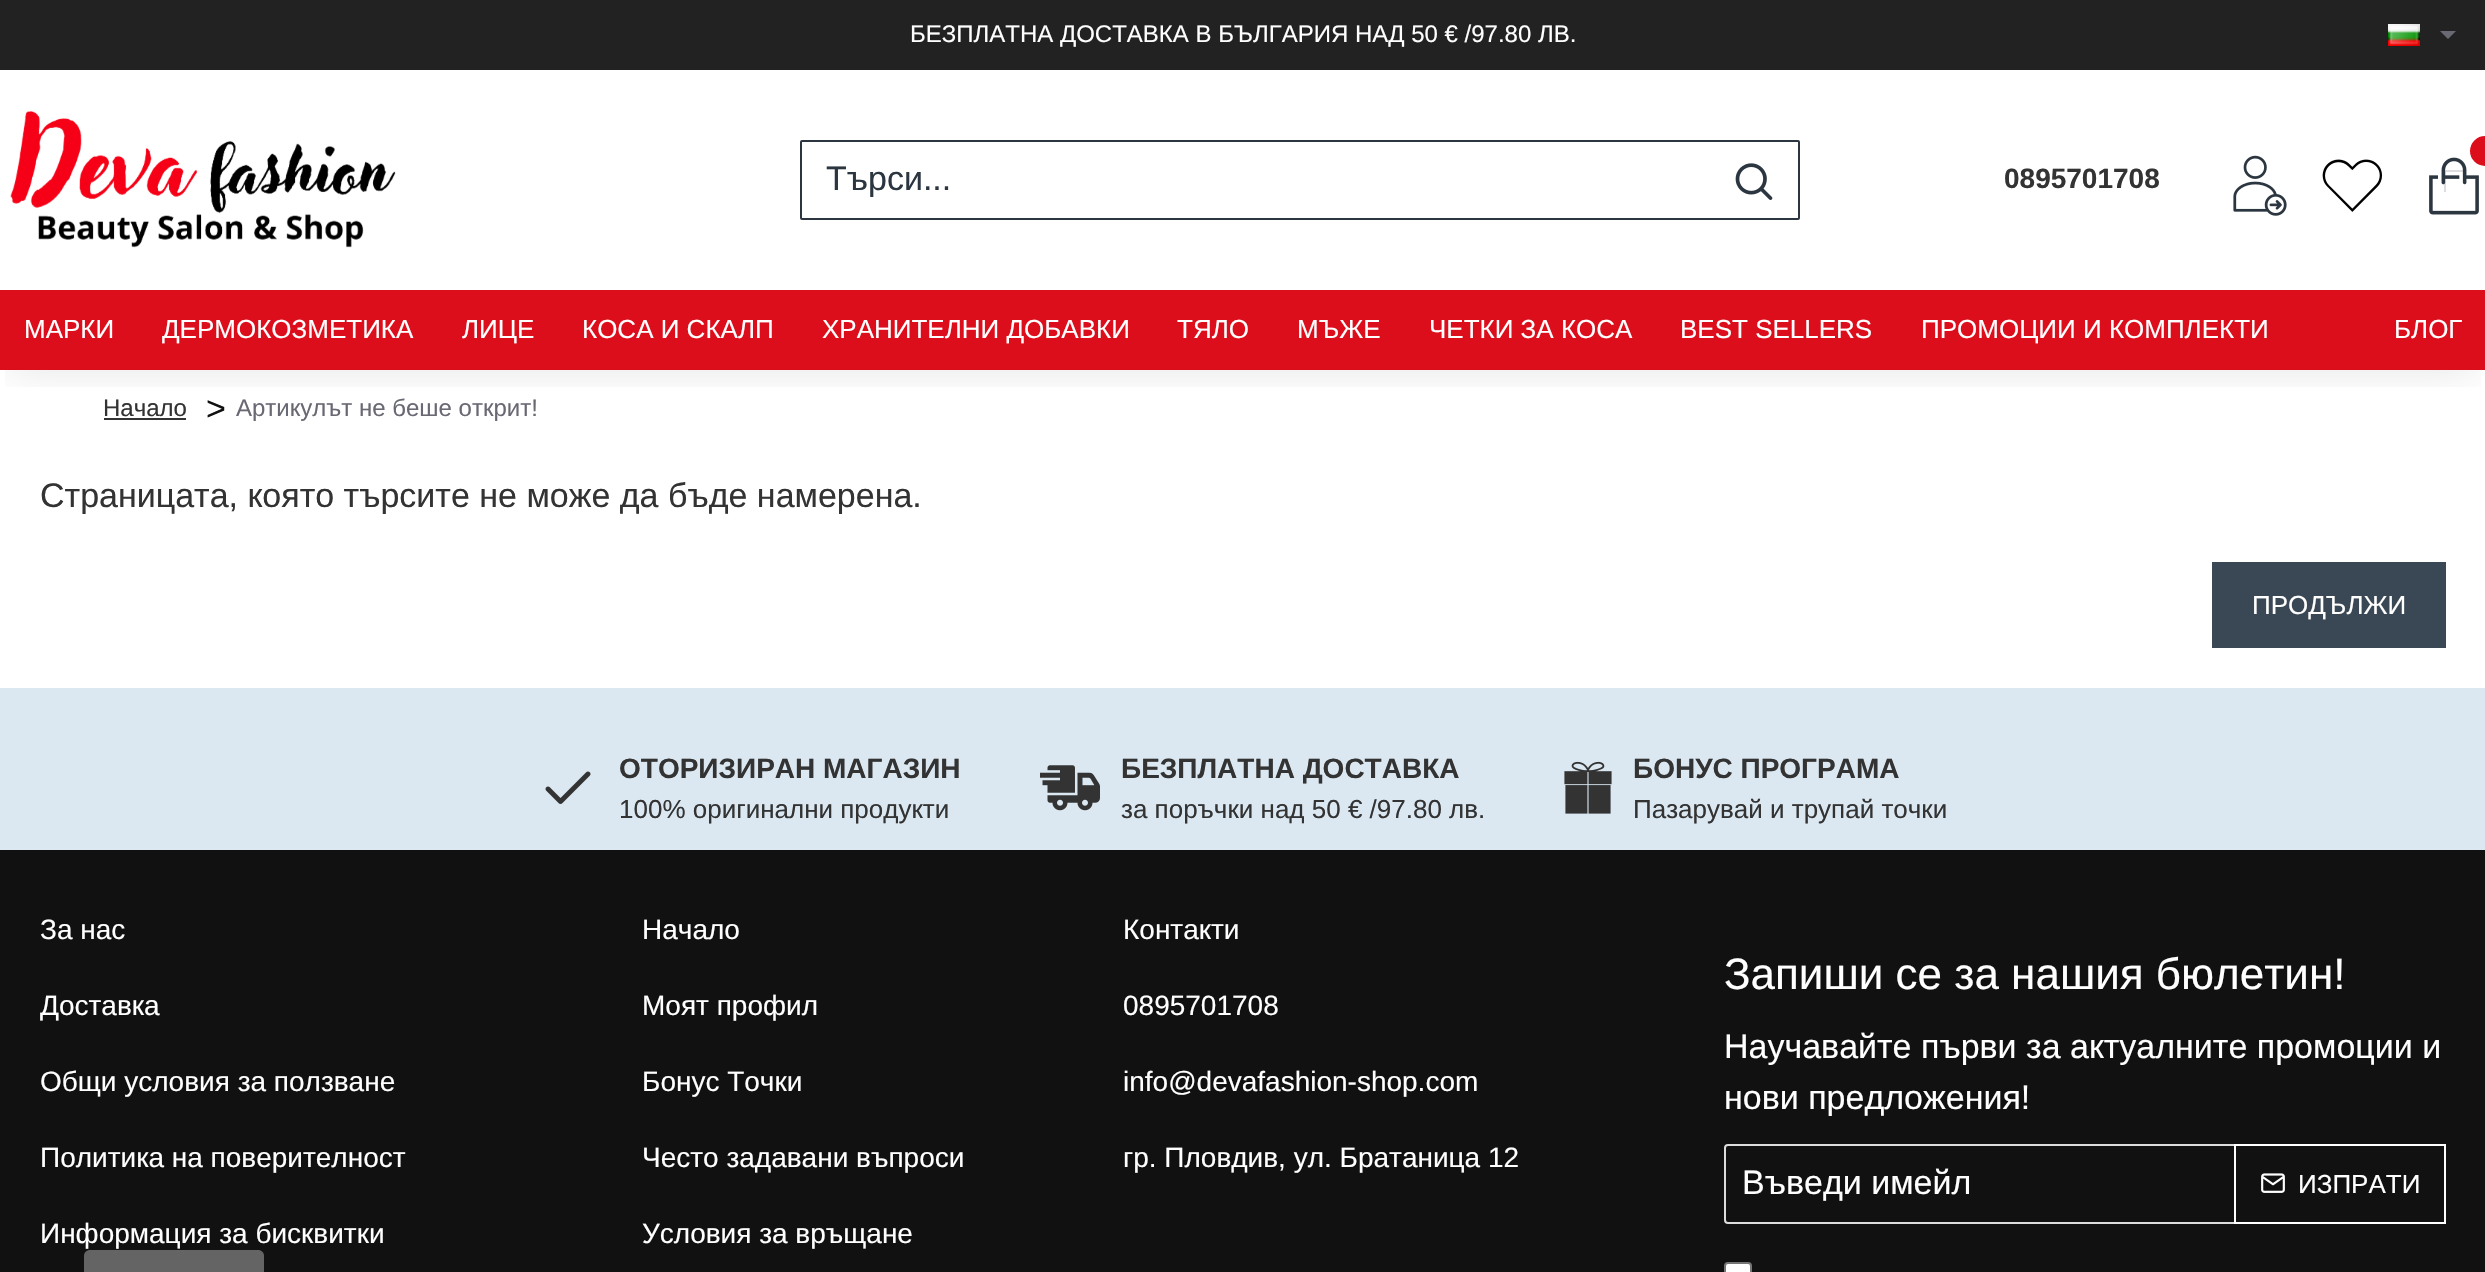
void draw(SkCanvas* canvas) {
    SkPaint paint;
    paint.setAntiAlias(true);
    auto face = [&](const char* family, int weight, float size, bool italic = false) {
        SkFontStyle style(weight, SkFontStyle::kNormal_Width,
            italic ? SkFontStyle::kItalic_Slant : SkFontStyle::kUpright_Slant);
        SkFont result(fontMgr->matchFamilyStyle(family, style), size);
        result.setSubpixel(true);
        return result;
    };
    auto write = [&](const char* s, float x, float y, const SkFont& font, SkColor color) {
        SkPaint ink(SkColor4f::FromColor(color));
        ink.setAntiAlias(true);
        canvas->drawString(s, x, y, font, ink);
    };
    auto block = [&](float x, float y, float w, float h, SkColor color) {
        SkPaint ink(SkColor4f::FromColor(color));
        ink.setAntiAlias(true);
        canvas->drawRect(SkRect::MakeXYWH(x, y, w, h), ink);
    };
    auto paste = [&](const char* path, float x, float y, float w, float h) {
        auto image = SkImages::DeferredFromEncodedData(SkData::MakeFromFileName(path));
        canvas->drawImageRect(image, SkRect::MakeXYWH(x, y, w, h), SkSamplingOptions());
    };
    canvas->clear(SK_ColorWHITE);
    block(104, 418, 82, 2, SkColorSetRGB(51, 51, 51));
    canvas->save();
    canvas->clipRect(SkRect::MakeXYWH(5, 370, 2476, 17));
    paint.setColor(SkColorSetARGB(26, 0, 0, 0));
    paint.setMaskFilter(SkMaskFilter::MakeBlur(kNormal_SkBlurStyle, 20));
    canvas->drawRect(SkRect::MakeXYWH(10, 20, 2466, 350), paint);
    paint.setMaskFilter(nullptr);
    canvas->restore();
    block(0, 0, 2485, 70, SkColorSetRGB(34, 34, 34));
    auto kFont1 = face("Liberation Sans", 400, 24);
    write("БЕЗПЛАТНА ДОСТАВКА В БЪЛГАРИЯ НАД 50 € /97.80 ЛВ.", 910, 42, kFont1, SK_ColorWHITE);
    paste("pic1.png", 2388, 24, 32, 22);
    paint.setColor(SkColorSetRGB(105, 105, 115));
    canvas->drawPath(SkPathBuilder().moveTo(2440, 31).lineTo(2456, 31).lineTo(2448, 39).close().detach(), paint);
    paste("pic2.png", 10, 111, 386, 137);
    paint.setStyle(SkPaint::kStroke_Style);
    paint.setStrokeWidth(2);
    paint.setColor(SkColorSetRGB(44, 54, 64));
    canvas->drawRoundRect(SkRect::MakeXYWH(801, 141, 998, 78), 1, 1, paint);
    auto kFont2 = face("Liberation Sans", 400, 34);
    write("Търси...", 826, 190, kFont2, SkColorSetRGB(44, 54, 64));
    paste("pic3.png", 1735, 163, 38, 37);
    auto kFont3 = face("Liberation Sans", 700, 28);
    write("0895701708", 2004, 188, kFont3, SkColorSetRGB(51, 51, 51));
    paste("pic4.png", 2233, 155, 54, 61);
    paste("pic5.png", 2322, 159, 61, 53);
    block(2444, 170, 22, 2, SkColorSetRGB(221, 221, 221));
    block(2444, 170, 2, 22, SkColorSetRGB(221, 221, 221));
    paste("pic6.png", 2429, 157, 50, 58);
    paint.setStyle(SkPaint::kFill_Style);
    paint.setColor(SkColorSetRGB(221, 14, 28));
    canvas->drawCircle(2485, 151, 17, paint);
    paint.setStyle(SkPaint::kStroke_Style);
    paint.setStrokeWidth(4);
    paint.setColor(SK_ColorWHITE);
    canvas->drawCircle(2485, 151, 17, paint);
    block(0, 290, 2485, 80, SkColorSetRGB(221, 14, 28));
    auto kFont4 = face("Liberation Sans", 400, 26);
    write("МАРКИ", 24, 338, kFont4, SK_ColorWHITE);
    write("ДЕРМОКОЗМЕТИКА", 162, 338, kFont4, SK_ColorWHITE);
    write("ЛИЦЕ", 462, 338, kFont4, SK_ColorWHITE);
    write("КОСА И СКАЛП", 582, 338, kFont4, SK_ColorWHITE);
    write("ХРАНИТЕЛНИ ДОБАВКИ", 822, 338, kFont4, SK_ColorWHITE);
    write("ТЯЛО", 1177, 338, kFont4, SK_ColorWHITE);
    write("МЪЖЕ", 1297, 338, kFont4, SK_ColorWHITE);
    write("ЧЕТКИ ЗА КОСА", 1429, 338, kFont4, SK_ColorWHITE);
    write("BEST SELLERS", 1680, 338, kFont4, SK_ColorWHITE);
    write("ПРОМОЦИИ И КОМПЛЕКТИ", 1921, 338, kFont4, SK_ColorWHITE);
    write("БЛОГ", 2394, 338, kFont4, SK_ColorWHITE);
    write("Начало", 103, 416, kFont1, SkColorSetRGB(51, 51, 51));
    write(">", 206, 420, kFont2, SkColorSetRGB(17, 17, 17));
    write("Артикулът не беше открит!", 236, 416, kFont1, SkColorSetRGB(105, 105, 115));
    write("Страницата, която търсите не може да бъде намерена.", 40, 507, kFont2, SkColorSetRGB(51, 51, 51));
    block(2212, 562, 234, 86, SkColorSetRGB(58, 71, 84));
    write("ПРОДЪЛЖИ", 2252, 614, kFont4, SK_ColorWHITE);
    block(0, 850, 2485, 422, SkColorSetRGB(17, 17, 17));
    block(0, 688, 2485, 162, SkColorSetRGB(219, 232, 242));
    paste("pic7.png", 545, 771, 46, 33);
    write("ОТОРИЗИРАН МАГАЗИН", 619, 778, kFont3, SkColorSetRGB(51, 51, 51));
    write("100% оригинални продукти", 619, 818, kFont4, SkColorSetRGB(51, 51, 51));
    paste("pic8.png", 1040, 765, 60, 46);
    write("БЕЗПЛАТНА ДОСТАВКА", 1121, 778, kFont3, SkColorSetRGB(51, 51, 51));
    write("за поръчки над 50 € /97.80 лв.", 1121, 818, kFont4, SkColorSetRGB(51, 51, 51));
    paste("pic9.png", 1564, 761, 48, 53);
    write("БОНУС ПРОГРАМА", 1633, 778, kFont3, SkColorSetRGB(51, 51, 51));
    write("Пазарувай и трупай точки", 1633, 818, kFont4, SkColorSetRGB(51, 51, 51));
    auto kFont5 = face("Liberation Sans", 400, 28);
    write("За нас", 40, 939, kFont5, SK_ColorWHITE);
    write("Доставка", 40, 1015, kFont5, SK_ColorWHITE);
    write("Общи условия за ползване", 40, 1091, kFont5, SK_ColorWHITE);
    write("Политика на поверителност", 40, 1167, kFont5, SK_ColorWHITE);
    write("Информация за бисквитки", 40, 1243, kFont5, SK_ColorWHITE);
    write("Начало", 642, 939, kFont5, SK_ColorWHITE);
    write("Моят профил", 642, 1015, kFont5, SK_ColorWHITE);
    write("Бонус Точки", 642, 1091, kFont5, SK_ColorWHITE);
    write("Често задавани въпроси", 642, 1167, kFont5, SK_ColorWHITE);
    write("Условия за връщане", 642, 1243, kFont5, SK_ColorWHITE);
    write("Контакти", 1123, 939, kFont5, SK_ColorWHITE);
    write("0895701708", 1123, 1015, kFont5, SK_ColorWHITE);
    write("info@devafashion-shop.com", 1123, 1091, kFont5, SK_ColorWHITE);
    write("гр. Пловдив, ул. Братаница 12", 1123, 1167, kFont5, SK_ColorWHITE);
    auto kFont6 = face("Liberation Sans", 400, 44);
    write("Запиши се за нашия бюлетин!", 1724, 989, kFont6, SK_ColorWHITE);
    write("Научавайте първи за актуалните промоции и", 1724, 1058, kFont2, SK_ColorWHITE);
    write("нови предложения!", 1724, 1109, kFont2, SK_ColorWHITE);
    paint.setStrokeWidth(2);
    paint.setColor(SkColorSetRGB(221, 221, 221));
    canvas->drawRoundRect(SkRect::MakeXYWH(1725, 1145, 720, 78), 3, 3, paint);
    write("Въведи имейл", 1742, 1194, kFont2, SK_ColorWHITE);
    block(2442, 1146, 2, 76, SkColorSetRGB(17, 17, 17));
    paint.setColor(SK_ColorWHITE);
    canvas->drawRect(SkRect::MakeXYWH(2235, 1145, 210, 78), paint);
    paste("pic10.png", 2261, 1173, 24, 20);
    write("ИЗПРАТИ", 2298, 1193, kFont4, SK_ColorWHITE);
    paint.setStyle(SkPaint::kFill_Style);
    canvas->drawRoundRect(SkRect::MakeXYWH(1725, 1263, 26, 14), 3, 3, paint);
    paint.setStyle(SkPaint::kStroke_Style);
    paint.setColor(SkColorSetRGB(118, 118, 118));
    canvas->drawRoundRect(SkRect::MakeXYWH(1725, 1263, 26, 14), 3, 3, paint);
    paint.setStyle(SkPaint::kFill_Style);
    paint.setColor(SkColorSetRGB(100, 100, 100));
    canvas->drawPath(SkPathBuilder().moveTo(90, 1250).lineTo(258, 1250).cubicTo(261.5f, 1250, 264, 1252.5f, 264, 1256).lineTo(264, 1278).lineTo(84, 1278).lineTo(84, 1256).cubicTo(84, 1252.5f, 86.5f, 1250, 90, 1250).close().detach(), paint);
}
